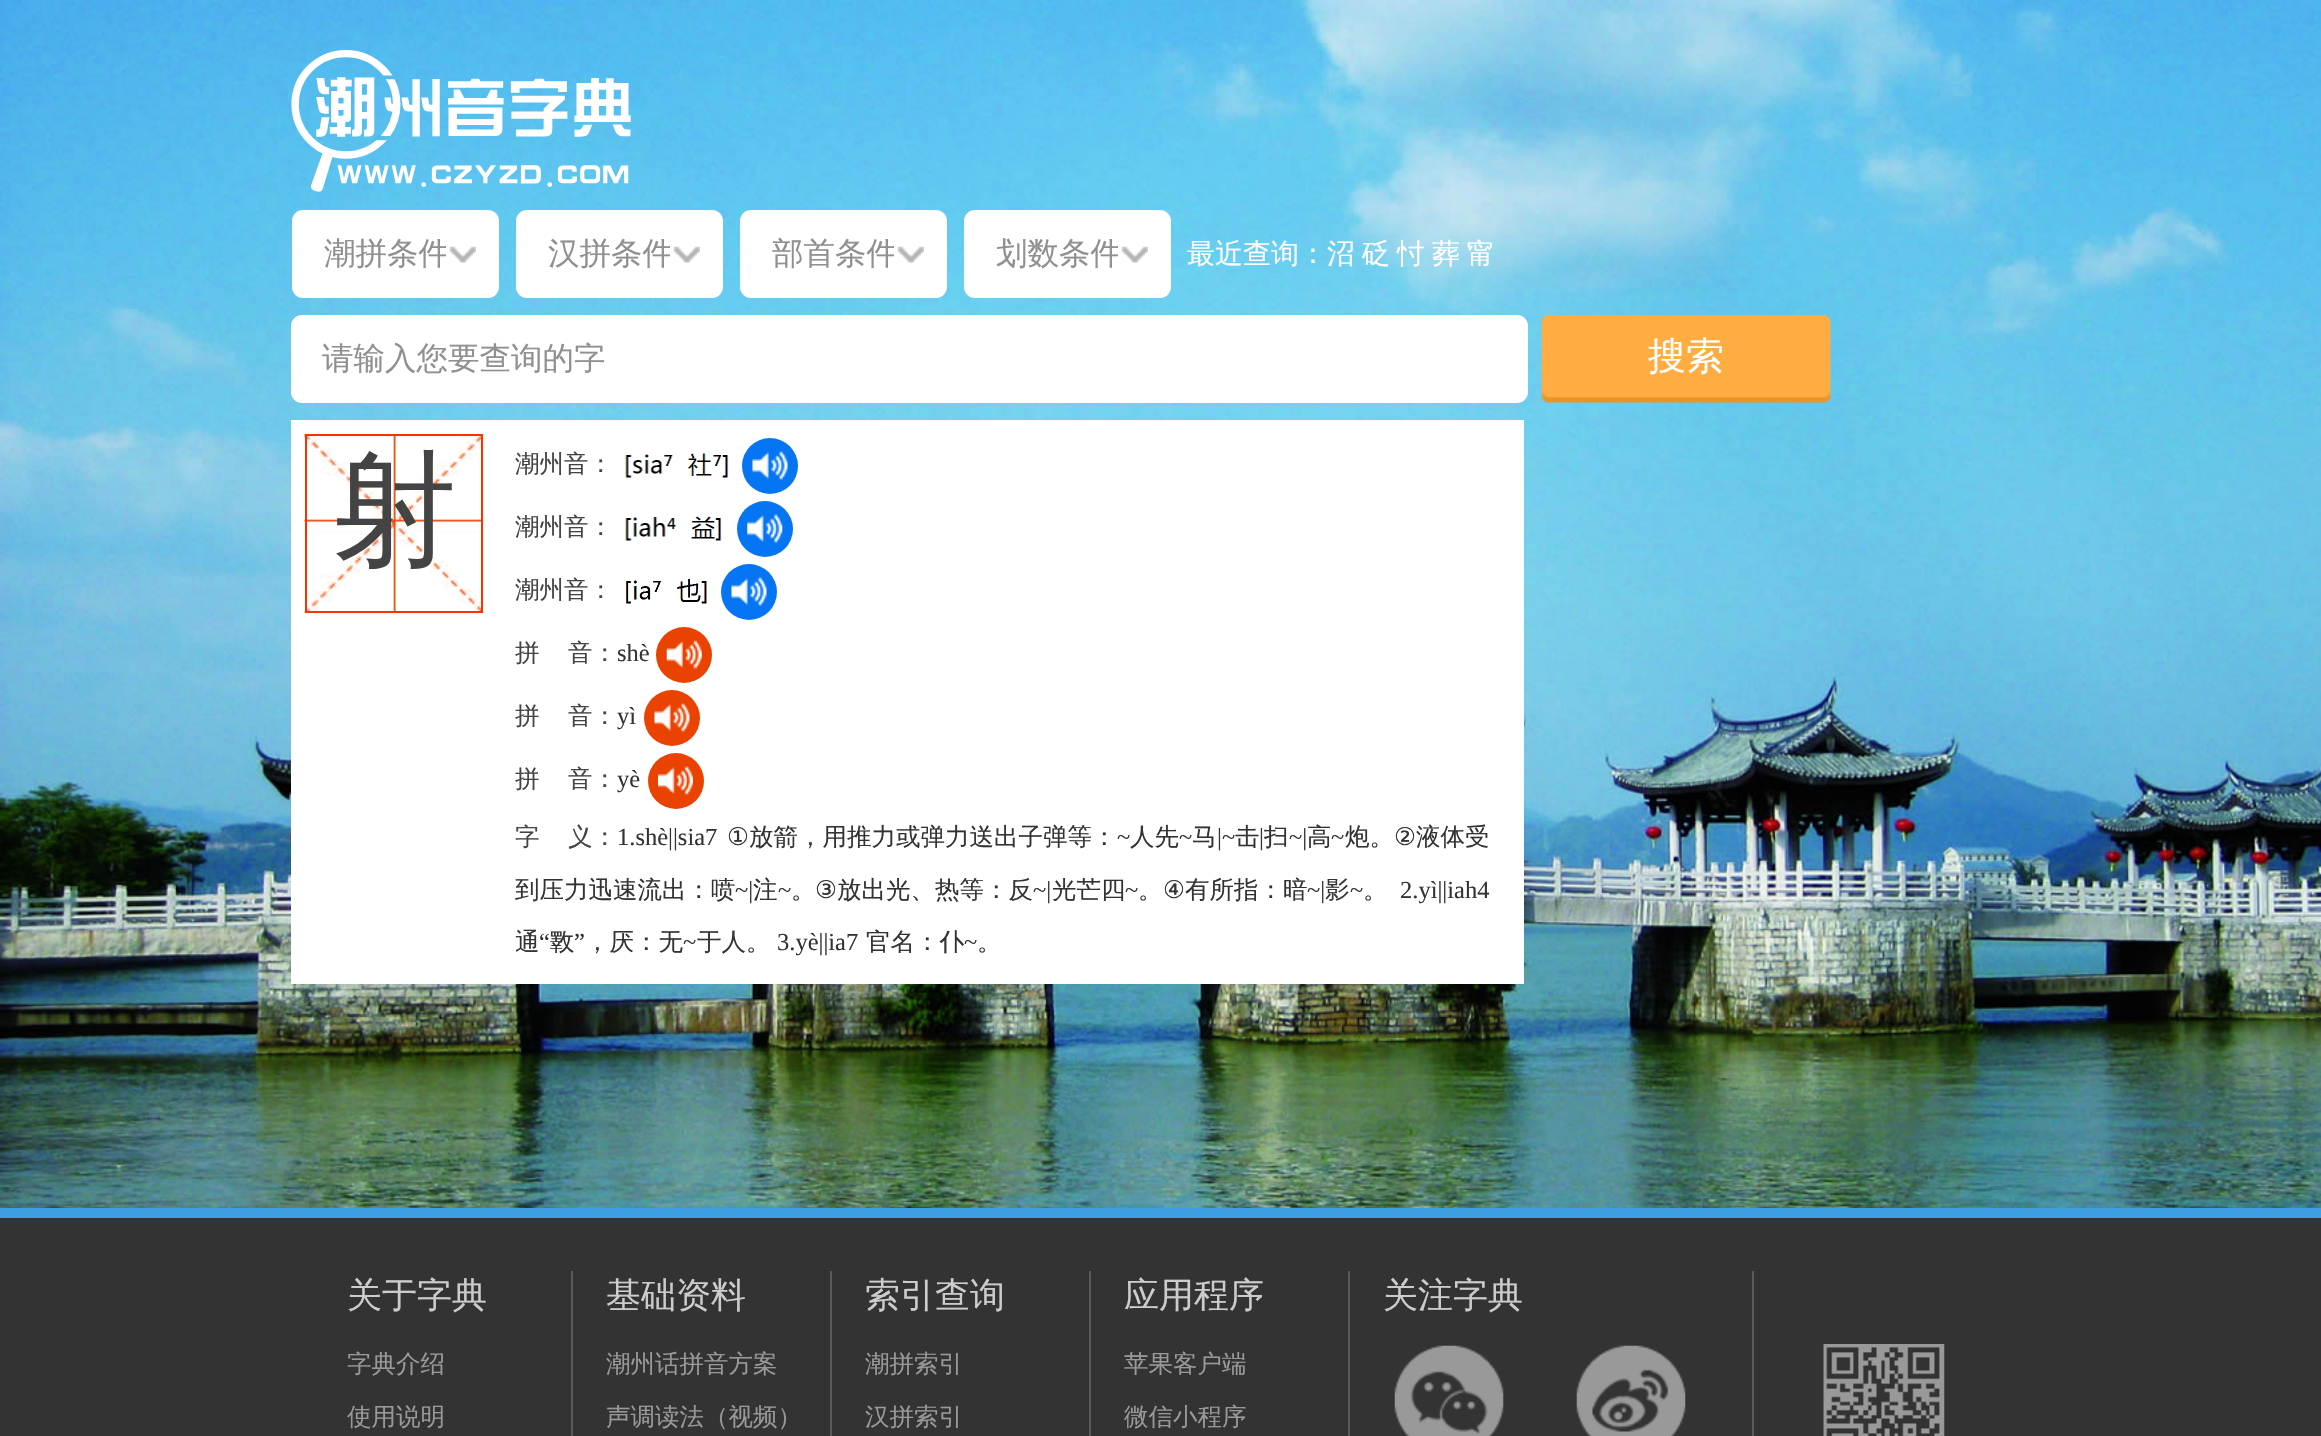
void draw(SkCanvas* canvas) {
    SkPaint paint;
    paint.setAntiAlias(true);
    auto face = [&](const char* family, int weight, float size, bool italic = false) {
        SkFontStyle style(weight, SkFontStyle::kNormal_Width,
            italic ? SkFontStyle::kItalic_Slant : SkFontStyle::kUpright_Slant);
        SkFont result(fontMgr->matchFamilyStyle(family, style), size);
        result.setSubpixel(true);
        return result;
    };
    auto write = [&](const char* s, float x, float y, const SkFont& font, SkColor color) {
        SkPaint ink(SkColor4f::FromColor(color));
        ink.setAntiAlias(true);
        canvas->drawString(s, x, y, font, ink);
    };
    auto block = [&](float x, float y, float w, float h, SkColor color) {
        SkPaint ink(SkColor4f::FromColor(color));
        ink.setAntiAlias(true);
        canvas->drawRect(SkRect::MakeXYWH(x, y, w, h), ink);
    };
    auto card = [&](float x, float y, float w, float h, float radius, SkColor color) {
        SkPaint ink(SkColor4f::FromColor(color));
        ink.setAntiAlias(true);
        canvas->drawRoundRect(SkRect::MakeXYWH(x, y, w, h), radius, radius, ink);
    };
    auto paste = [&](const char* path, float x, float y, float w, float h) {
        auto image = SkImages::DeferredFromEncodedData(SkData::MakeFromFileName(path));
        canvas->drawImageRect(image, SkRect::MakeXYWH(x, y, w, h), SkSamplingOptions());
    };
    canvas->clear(SK_ColorWHITE);
    paste("pic1.png", 0, 0, 2321, 1208);
    paste("pic2.png", 291, 50, 340, 142);
    card(292, 210, 207, 88, 11, SK_ColorWHITE);
    paste("pic3.png", 449, 246, 27, 17);
    canvas->save();
    canvas->clipRect(SkRect::MakeXYWH(324, 233, 122, 42));
    auto kFont1 = face("WenQuanYi Zen Hei", 500, 31.5f);
    write("潮拼条件", 324, 264, kFont1, SkColorSetRGB(144, 144, 144));
    canvas->restore();
    card(516, 210, 207, 88, 11, SK_ColorWHITE);
    paste("pic3.png", 673, 246, 27, 17);
    canvas->save();
    canvas->clipRect(SkRect::MakeXYWH(548, 233, 122, 42));
    write("汉拼条件", 548, 264, kFont1, SkColorSetRGB(144, 144, 144));
    canvas->restore();
    card(740, 210, 207, 88, 11, SK_ColorWHITE);
    paste("pic4.png", 897, 246, 27, 17);
    canvas->save();
    canvas->clipRect(SkRect::MakeXYWH(772, 233, 122, 42));
    write("部首条件", 772, 264, kFont1, SkColorSetRGB(144, 144, 144));
    canvas->restore();
    card(964, 210, 207, 88, 11, SK_ColorWHITE);
    paste("pic3.png", 1121, 246, 27, 17);
    canvas->save();
    canvas->clipRect(SkRect::MakeXYWH(996, 233, 122, 42));
    write("划数条件", 996, 264, kFont1, SkColorSetRGB(144, 144, 144));
    canvas->restore();
    auto kFont2 = face("WenQuanYi Zen Hei", 500, 28);
    write("最近查询：沼", 1187, 263, kFont2, SK_ColorWHITE);
    write("砭", 1362, 263, kFont2, SK_ColorWHITE);
    write("忖", 1397, 263, kFont2, SK_ColorWHITE);
    write("葬", 1432, 263, kFont2, SK_ColorWHITE);
    write("甯", 1467, 263, kFont2, SK_ColorWHITE);
    card(291, 315, 1237, 88, 11, SK_ColorWHITE);
    write("请输入您要查询的字", 322, 369, kFont1, SkColorSetRGB(144, 144, 144));
    paste("pic5.png", 1541, 315, 290, 88);
    auto kFont3 = face("WenQuanYi Zen Hei", 500, 38);
    write("搜索", 1648, 369, kFont3, SK_ColorWHITE);
    block(291, 420, 1233, 564, SK_ColorWHITE);
    paste("pic6.png", 304, 434, 177, 179);
    paint.setStyle(SkPaint::kStroke_Style);
    paint.setStrokeWidth(2);
    paint.setColor(SkColorSetRGB(249, 50, 0));
    canvas->drawRect(SkRect::MakeXYWH(306, 435, 176, 177), paint);
    auto kFont4 = face("WenQuanYi Zen Hei", 500, 126);
    write("射", 331, 553, kFont4, SkColorSetRGB(68, 68, 68));
    auto kFont5 = face("WenQuanYi Zen Hei", 500, 24.5f);
    write("潮州音：", 515, 472, kFont5, SkColorSetRGB(68, 68, 68));
    paste("pic7.png", 625, 453, 104, 25);
    paint.setStyle(SkPaint::kFill_Style);
    paint.setColor(SkColorSetRGB(5, 117, 244));
    canvas->drawCircle(770, 466, 28, paint);
    paste("pic8.png", 752, 451, 36, 30);
    write("潮州音：", 515, 535, kFont5, SkColorSetRGB(68, 68, 68));
    paste("pic9.png", 625, 516, 97, 25);
    canvas->drawCircle(765, 529, 28, paint);
    paste("pic10.png", 747, 514, 36, 30);
    write("潮州音：", 515, 598, kFont5, SkColorSetRGB(68, 68, 68));
    paste("pic11.png", 625, 579, 82, 25);
    canvas->drawCircle(749, 592, 28, paint);
    paste("pic8.png", 731, 577, 36, 30);
    write("拼", 515, 661, kFont5, SkColorSetRGB(68, 68, 68));
    write("音：", 568, 661, kFont5, SkColorSetRGB(68, 68, 68));
    auto kFont6 = face("Liberation Serif", 400, 24.5f);
    write("shè", 617, 661, kFont6, SkColorSetRGB(51, 51, 51));
    paint.setColor(SkColorSetRGB(234, 66, 0));
    canvas->drawCircle(684, 655, 28, paint);
    paste("pic12.png", 666, 640, 36, 30);
    write("拼", 515, 724, kFont5, SkColorSetRGB(68, 68, 68));
    write("音：", 568, 724, kFont5, SkColorSetRGB(68, 68, 68));
    write("yì", 617, 724, kFont6, SkColorSetRGB(51, 51, 51));
    canvas->drawCircle(672, 718, 28, paint);
    paste("pic13.png", 654, 703, 36, 30);
    write("拼", 515, 787, kFont5, SkColorSetRGB(68, 68, 68));
    write("音：", 568, 787, kFont5, SkColorSetRGB(68, 68, 68));
    write("yè", 617, 787, kFont6, SkColorSetRGB(51, 51, 51));
    canvas->drawCircle(676, 781, 28, paint);
    paste("pic14.png", 658, 766, 35, 30);
    write("字", 515, 845, kFont5, SkColorSetRGB(68, 68, 68));
    write("义：", 568, 845, kFont5, SkColorSetRGB(68, 68, 68));
    write("1.shè||sia7", 617, 845, kFont6, SkColorSetRGB(51, 51, 51));
    auto kFont7 = face("DejaVu Sans", 400, 24.5f);
    write("①", 727, 845, kFont7, SkColorSetRGB(51, 51, 51));
    write("放箭，用推力或弹力送出子弹等：", 749, 845, kFont5, SkColorSetRGB(51, 51, 51));
    write("~", 1117, 845, kFont6, SkColorSetRGB(51, 51, 51));
    write("人先", 1130, 845, kFont5, SkColorSetRGB(51, 51, 51));
    write("~", 1179, 845, kFont6, SkColorSetRGB(51, 51, 51));
    write("马", 1192, 845, kFont5, SkColorSetRGB(51, 51, 51));
    write("|~", 1217, 845, kFont6, SkColorSetRGB(51, 51, 51));
    write("击", 1235, 845, kFont5, SkColorSetRGB(51, 51, 51));
    write("|", 1259, 845, kFont6, SkColorSetRGB(51, 51, 51));
    write("扫", 1264, 845, kFont5, SkColorSetRGB(51, 51, 51));
    write("~|", 1289, 845, kFont6, SkColorSetRGB(51, 51, 51));
    write("高", 1307, 845, kFont5, SkColorSetRGB(51, 51, 51));
    write("~", 1331, 845, kFont6, SkColorSetRGB(51, 51, 51));
    write("炮。", 1345, 845, kFont5, SkColorSetRGB(51, 51, 51));
    write("②", 1394, 845, kFont7, SkColorSetRGB(51, 51, 51));
    write("液体受", 1416, 845, kFont5, SkColorSetRGB(51, 51, 51));
    write("到压力迅速流出：喷", 515, 898, kFont5, SkColorSetRGB(51, 51, 51));
    write("~|", 735, 898, kFont6, SkColorSetRGB(51, 51, 51));
    write("注", 753, 898, kFont5, SkColorSetRGB(51, 51, 51));
    write("~", 778, 898, kFont6, SkColorSetRGB(51, 51, 51));
    write("③", 815, 898, kFont7, SkColorSetRGB(51, 51, 51));
    write("放出光、热等：反", 837, 898, kFont5, SkColorSetRGB(51, 51, 51));
    write("~|", 1033, 898, kFont6, SkColorSetRGB(51, 51, 51));
    write("光芒四", 1052, 898, kFont5, SkColorSetRGB(51, 51, 51));
    write("~", 1125, 898, kFont6, SkColorSetRGB(51, 51, 51));
    write("④", 1163, 898, kFont7, SkColorSetRGB(51, 51, 51));
    write("有所指：暗", 1185, 898, kFont5, SkColorSetRGB(51, 51, 51));
    write("~|", 1307, 898, kFont6, SkColorSetRGB(51, 51, 51));
    write("影", 1325, 898, kFont5, SkColorSetRGB(51, 51, 51));
    write("~", 1350, 898, kFont6, SkColorSetRGB(51, 51, 51));
    write("2.yì||iah4", 1400, 898, kFont6, SkColorSetRGB(51, 51, 51));
    write("。", 791, 898, kFont5, SkColorSetRGB(51, 51, 51));
    write("。", 1138, 898, kFont5, SkColorSetRGB(51, 51, 51));
    write("。", 1363, 898, kFont5, SkColorSetRGB(51, 51, 51));
    write("通", 515, 950, kFont5, SkColorSetRGB(51, 51, 51));
    write("“", 539, 950, kFont6, SkColorSetRGB(51, 51, 51));
    write("斁", 550, 950, kFont5, SkColorSetRGB(51, 51, 51));
    write("”", 574, 950, kFont6, SkColorSetRGB(51, 51, 51));
    write("，厌：无", 585, 950, kFont5, SkColorSetRGB(51, 51, 51));
    write("于人。", 697, 950, kFont5, SkColorSetRGB(51, 51, 51));
    write("3.yè||ia7", 777, 950, kFont6, SkColorSetRGB(51, 51, 51));
    write("官名：仆", 866, 950, kFont5, SkColorSetRGB(51, 51, 51));
    write("~", 683, 950, kFont6, SkColorSetRGB(51, 51, 51));
    write("~", 964, 950, kFont6, SkColorSetRGB(51, 51, 51));
    write("。", 977, 950, kFont5, SkColorSetRGB(51, 51, 51));
    block(0, 1218, 2321, 218, SkColorSetRGB(51, 51, 51));
    block(0, 1208, 2321, 10, SkColorSetRGB(61, 159, 225));
    block(571, 1271, 2, 165, SkColorSetRGB(91, 91, 91));
    auto kFont8 = face("WenQuanYi Zen Hei", 500, 35);
    write("关于字典", 347, 1307, kFont8, SkColorSetRGB(204, 204, 204));
    write("字典介绍", 347, 1372, kFont5, SkColorSetRGB(153, 153, 153));
    write("使用说明", 347, 1425, kFont5, SkColorSetRGB(153, 153, 153));
    block(830, 1271, 2, 165, SkColorSetRGB(91, 91, 91));
    write("基础资料", 606, 1307, kFont8, SkColorSetRGB(204, 204, 204));
    write("潮州话拼音方案", 606, 1372, kFont5, SkColorSetRGB(153, 153, 153));
    write("声调读法（视频）", 606, 1425, kFont5, SkColorSetRGB(153, 153, 153));
    block(1089, 1271, 2, 165, SkColorSetRGB(91, 91, 91));
    write("索引查询", 865, 1307, kFont8, SkColorSetRGB(204, 204, 204));
    write("潮拼索引", 865, 1372, kFont5, SkColorSetRGB(153, 153, 153));
    write("汉拼索引", 865, 1425, kFont5, SkColorSetRGB(153, 153, 153));
    block(1348, 1271, 2, 165, SkColorSetRGB(91, 91, 91));
    write("应用程序", 1124, 1307, kFont8, SkColorSetRGB(204, 204, 204));
    write("苹果客户端", 1124, 1372, kFont5, SkColorSetRGB(153, 153, 153));
    write("微信小程序", 1124, 1425, kFont5, SkColorSetRGB(153, 153, 153));
    block(1752, 1271, 2, 165, SkColorSetRGB(91, 91, 91));
    write("关注字典", 1383, 1307, kFont8, SkColorSetRGB(204, 204, 204));
    paste("pic15.png", 1394, 1345, 110, 91);
    paste("pic16.png", 1576, 1345, 110, 91);
    paste("pic17.png", 1823, 1344, 122, 92);
}
